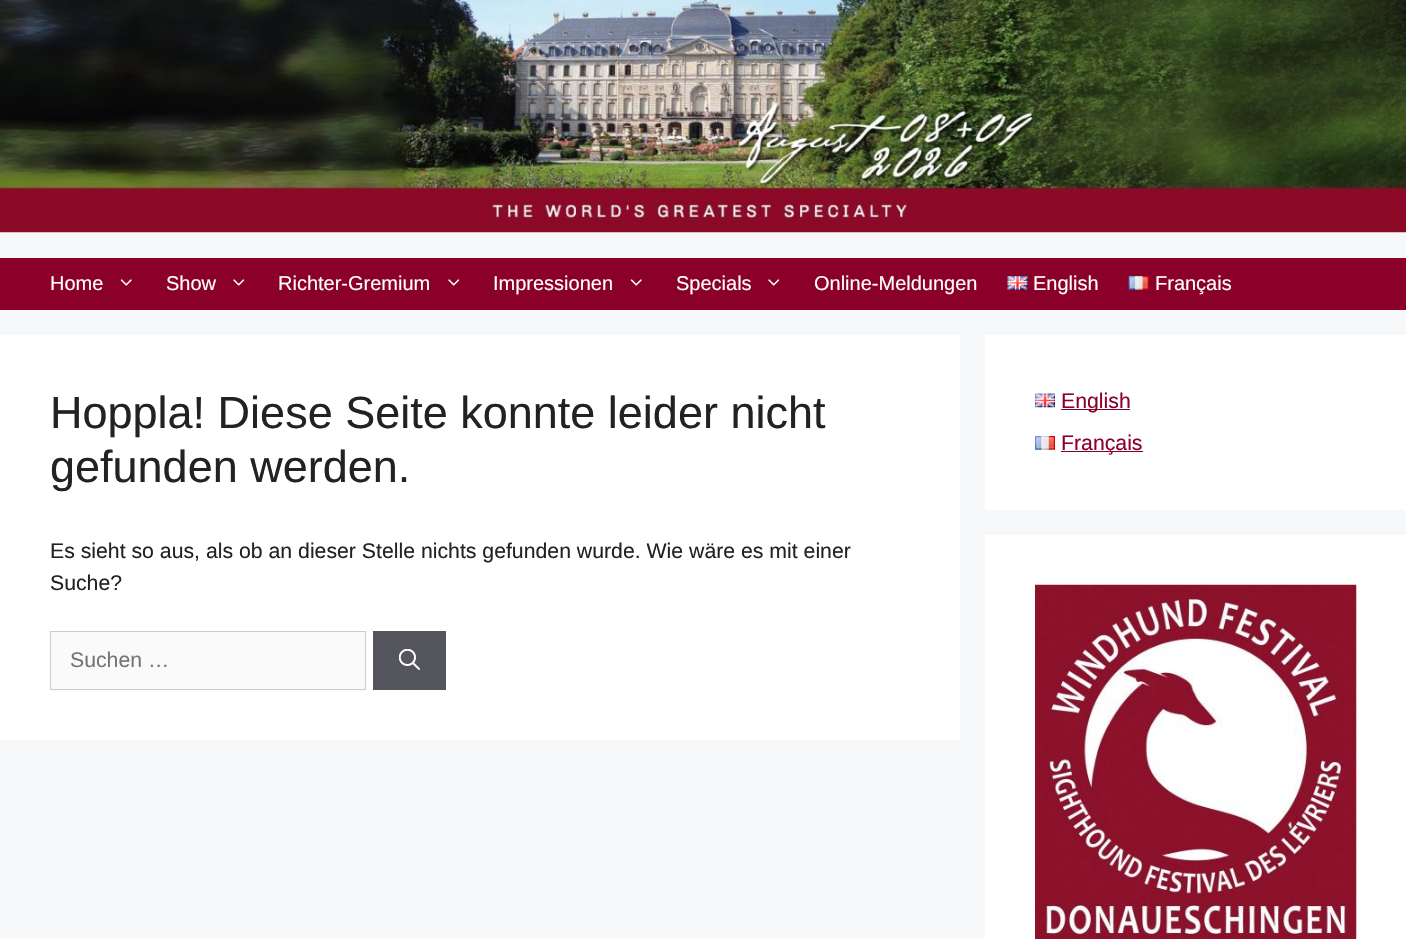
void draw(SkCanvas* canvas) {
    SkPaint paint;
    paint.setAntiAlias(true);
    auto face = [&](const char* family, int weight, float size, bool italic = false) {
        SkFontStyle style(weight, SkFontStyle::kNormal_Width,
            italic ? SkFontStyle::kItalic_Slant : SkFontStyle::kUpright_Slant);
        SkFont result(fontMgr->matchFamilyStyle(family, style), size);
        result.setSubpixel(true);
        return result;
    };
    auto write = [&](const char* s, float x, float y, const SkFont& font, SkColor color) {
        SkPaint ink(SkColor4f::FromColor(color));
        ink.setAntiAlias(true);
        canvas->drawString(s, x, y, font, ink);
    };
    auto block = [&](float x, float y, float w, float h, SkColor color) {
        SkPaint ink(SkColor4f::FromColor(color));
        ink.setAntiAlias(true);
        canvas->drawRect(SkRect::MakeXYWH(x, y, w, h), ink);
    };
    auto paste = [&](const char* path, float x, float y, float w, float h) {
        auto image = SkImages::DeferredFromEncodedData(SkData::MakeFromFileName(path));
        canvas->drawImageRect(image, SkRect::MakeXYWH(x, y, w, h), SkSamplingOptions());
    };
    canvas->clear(SkColorSetRGB(247, 248, 249));
    paste("pic1.png", 0, 0, 1406, 233);
    block(0, 258, 1406, 52, SkColorSetRGB(139, 0, 41));
    auto kFont1 = face("Liberation Sans", 400, 20);
    write("Home", 50, 290, kFont1, SK_ColorWHITE);
    paste("pic2.png", 120, 279, 12, 7);
    write("Show", 166, 290, kFont1, SK_ColorWHITE);
    paste("pic3.png", 233, 279, 12, 7);
    write("Richter-Gremium", 278, 290, kFont1, SK_ColorWHITE);
    paste("pic3.png", 448, 279, 12, 7);
    write("Impressionen", 493, 290, kFont1, SK_ColorWHITE);
    paste("pic2.png", 630, 279, 12, 7);
    write("Specials", 676, 290, kFont1, SK_ColorWHITE);
    paste("pic3.png", 768, 279, 12, 7);
    write("Online-Meldungen", 814, 290, kFont1, SK_ColorWHITE);
    paste("pic4.png", 1007, 276, 21, 14);
    write("English", 1033, 290, kFont1, SK_ColorWHITE);
    paste("pic5.png", 1128, 276, 21, 14);
    write("Français", 1155, 290, kFont1, SK_ColorWHITE);
    block(0, 335, 960, 405, SK_ColorWHITE);
    auto kFont2 = face("Liberation Sans", 400, 45);
    write("Hoppla! Diese Seite konnte leider nicht", 50, 428, kFont2, SkColorSetRGB(34, 34, 34));
    write("gefunden werden.", 50, 482, kFont2, SkColorSetRGB(34, 34, 34));
    auto kFont3 = face("Liberation Sans", 400, 21.25f);
    write("Es sieht so aus, als ob an dieser Stelle nichts gefunden wurde. Wie wäre es mit einer", 50, 558, kFont3, SkColorSetRGB(34, 34, 34));
    write("Suche?", 50, 590, kFont3, SkColorSetRGB(34, 34, 34));
    paint.setColor(SkColorSetRGB(250, 250, 250));
    canvas->drawRect(SkRect::MakeXYWH(50.5f, 631.5f, 315, 58), paint);
    paint.setStyle(SkPaint::kStroke_Style);
    paint.setStrokeWidth(1);
    paint.setColor(SkColorSetRGB(204, 204, 204));
    canvas->drawRect(SkRect::MakeXYWH(50.5f, 631.5f, 315, 58), paint);
    write("Suchen …", 70, 667, kFont3, SkColorSetRGB(117, 117, 117));
    block(373, 631, 73, 59, SkColorSetRGB(85, 85, 94));
    paste("pic6.png", 399, 649, 21, 21);
    block(985, 335, 421, 175, SK_ColorWHITE);
    paste("pic7.png", 1035, 393, 20, 15);
    block(1061, 409, 69, 1, SkColorSetRGB(139, 0, 41));
    write("English", 1061, 408, kFont3, SkColorSetRGB(139, 0, 41));
    paste("pic8.png", 1035, 436, 20, 14);
    block(1061, 451, 82, 1, SkColorSetRGB(139, 0, 41));
    write("Français", 1061, 450, kFont3, SkColorSetRGB(139, 0, 41));
    block(985, 535, 421, 404, SK_ColorWHITE);
    paste("pic9.png", 1035, 584, 322, 355);
}
